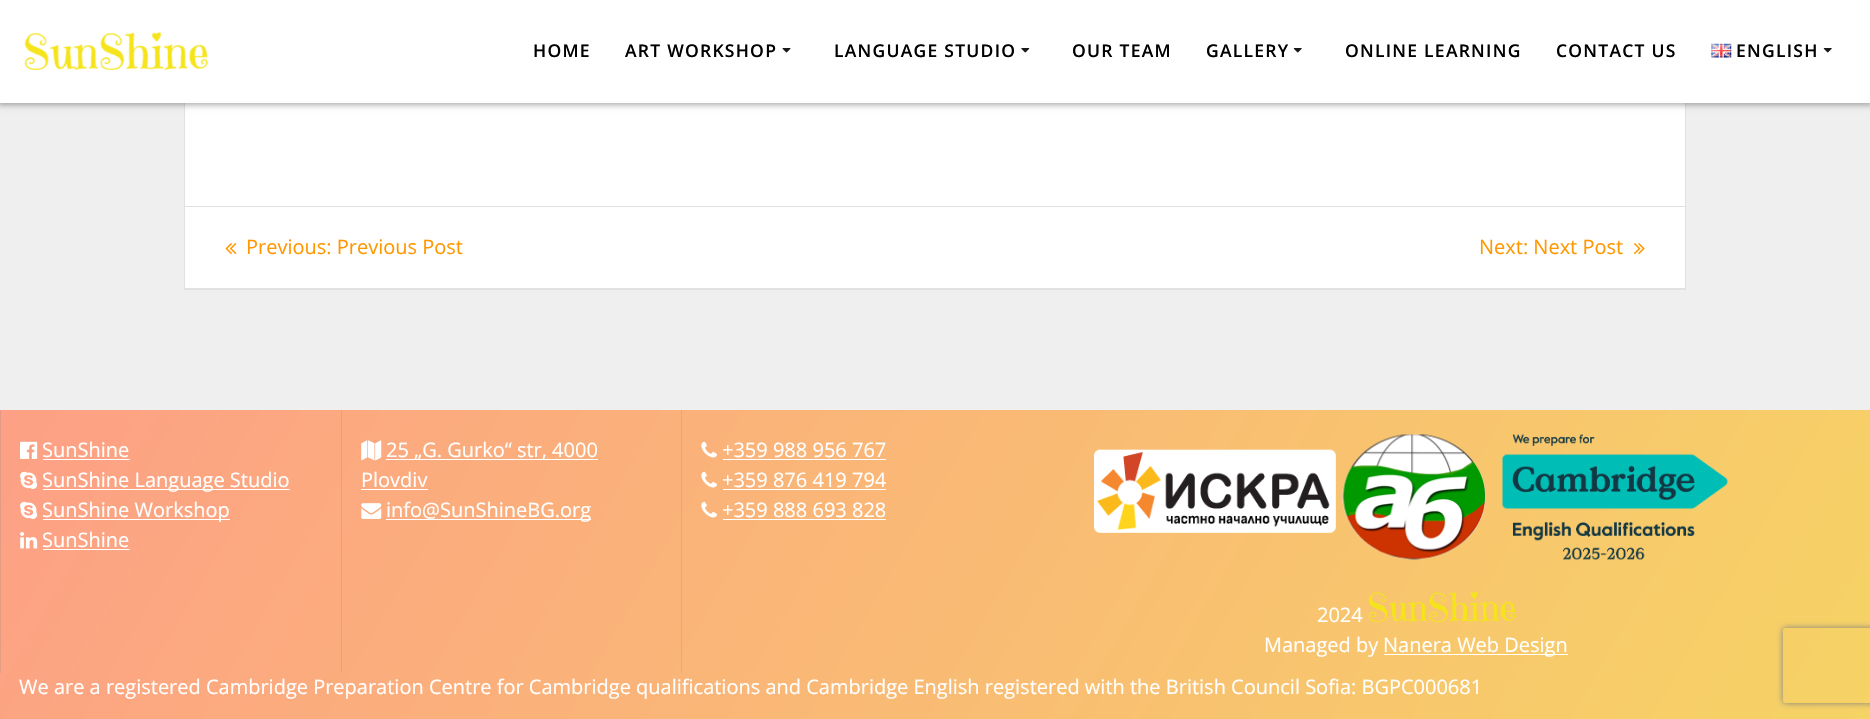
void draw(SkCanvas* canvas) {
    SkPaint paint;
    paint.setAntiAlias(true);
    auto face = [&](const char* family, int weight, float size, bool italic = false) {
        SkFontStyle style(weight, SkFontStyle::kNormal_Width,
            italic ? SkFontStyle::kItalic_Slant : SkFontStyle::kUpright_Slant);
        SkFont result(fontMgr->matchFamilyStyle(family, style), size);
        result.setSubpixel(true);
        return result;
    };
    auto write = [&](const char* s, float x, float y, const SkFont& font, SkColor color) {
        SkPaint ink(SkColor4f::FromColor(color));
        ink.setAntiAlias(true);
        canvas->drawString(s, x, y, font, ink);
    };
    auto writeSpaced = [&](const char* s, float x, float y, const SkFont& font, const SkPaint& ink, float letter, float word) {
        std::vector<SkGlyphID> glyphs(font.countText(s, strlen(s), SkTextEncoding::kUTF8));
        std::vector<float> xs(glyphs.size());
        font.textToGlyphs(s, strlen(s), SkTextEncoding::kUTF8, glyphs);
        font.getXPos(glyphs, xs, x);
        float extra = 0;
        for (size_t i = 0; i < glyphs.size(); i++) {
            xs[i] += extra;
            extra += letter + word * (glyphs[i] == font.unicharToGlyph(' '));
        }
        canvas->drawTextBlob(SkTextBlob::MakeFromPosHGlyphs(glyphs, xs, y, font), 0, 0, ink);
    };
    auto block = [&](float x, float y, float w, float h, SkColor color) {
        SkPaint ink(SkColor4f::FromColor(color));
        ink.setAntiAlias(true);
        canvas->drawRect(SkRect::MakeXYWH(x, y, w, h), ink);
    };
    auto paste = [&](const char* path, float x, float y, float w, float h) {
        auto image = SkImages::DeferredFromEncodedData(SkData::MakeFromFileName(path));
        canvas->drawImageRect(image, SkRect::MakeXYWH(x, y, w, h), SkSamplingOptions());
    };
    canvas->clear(SkColorSetRGB(239, 239, 239));
    block(185, 103, 1500, 185, SK_ColorWHITE);
    paint.setStyle(SkPaint::kStroke_Style);
    paint.setStrokeWidth(1);
    paint.setColor(SkColorSetRGB(224, 225, 225));
    canvas->drawRect(SkRect::MakeXYWH(184.5f, -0.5f, 1501, 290), paint);
    paint.setStyle(SkPaint::kFill_Style);
    paint.setColor(SkColorSetARGB(84, 0, 0, 0));
    paint.setMaskFilter(SkMaskFilter::MakeBlur(kNormal_SkBlurStyle, 3));
    canvas->drawRect(SkRect::MakeXYWH(-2, -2, 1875, 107), paint);
    paint.setMaskFilter(nullptr);
    block(0, 0, 1870, 103, SK_ColorWHITE);
    paste("pic1.png", 24, 32, 184, 38);
    auto kFont1 = face("Open Sans", 600, 17.5f);
    paint.setColor(SK_ColorBLACK);
    writeSpaced("HOME", 533, 57, kFont1, paint, 1.25f, 0);
    writeSpaced("ART WORKSHOP", 625, 57, kFont1, paint, 1.25f, 0);
    paste("pic2.png", 782, 48, 9, 5);
    writeSpaced("LANGUAGE STUDIO", 834, 57, kFont1, paint, 1.25f, 0);
    paste("pic3.png", 1021, 48, 9, 5);
    writeSpaced("OUR TEAM", 1072, 57, kFont1, paint, 1.25f, 0);
    writeSpaced("GALLERY", 1206, 57, kFont1, paint, 1.25f, 0);
    paste("pic4.png", 1293, 48, 9, 5);
    writeSpaced("ONLINE LEARNING", 1345, 57, kFont1, paint, 1.25f, 0);
    writeSpaced("CONTACT US", 1556, 57, kFont1, paint, 1.25f, 0);
    paste("pic5.png", 1711, 43, 21, 15);
    writeSpaced("ENGLISH", 1736, 57, kFont1, paint, 1.25f, 0);
    paste("pic4.png", 1823, 48, 9, 5);
    block(185, 206, 1500, 1, SkColorSetRGB(224, 225, 225));
    block(185, 288, 1500, 1, SkColorSetRGB(224, 225, 225));
    paste("pic6.png", 225, 243, 12, 12);
    auto kFont2 = face("Open Sans", 400, 20);
    write("Previous: Previous Post", 246, 254, kFont2, SkColorSetRGB(255, 152, 0));
    write("Next: Next Post", 1479, 254, kFont2, SkColorSetRGB(255, 152, 0));
    paste("pic7.png", 1633, 243, 12, 12);
    {
        const SkColor colors[] = {SkColorSetRGB(253, 160, 133), SkColorSetRGB(246, 211, 101)};
        const float stops[] = {0, 1};
        const SkPoint ends[] = {{166, 122}, {1704, 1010}};
        paint.setShader(SkGradientShader::MakeLinear(ends, colors, stops, 2, SkTileMode::kClamp));
        paint.setAlpha(255);
    }
    canvas->drawRect(SkRect::MakeXYWH(0, 410, 1870, 309), paint);
    {
        const SkColor colors[] = {SkColorSetRGB(228, 154, 132), SkColorSetRGB(222, 194, 106)};
        const float stops[] = {0, 1};
        const SkPoint ends[] = {{166, 122}, {1704, 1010}};
        paint.setShader(SkGradientShader::MakeLinear(ends, colors, stops, 2, SkTileMode::kClamp));
        paint.setAlpha(255);
    }
    canvas->drawRect(SkRect::MakeXYWH(681, 410, 1, 263), paint);
    canvas->drawRect(SkRect::MakeXYWH(341, 410, 1, 263), paint);
    canvas->drawRect(SkRect::MakeXYWH(0, 410, 1, 263), paint);
    paste("pic8.png", 20, 441, 18, 18);
    write("SunShine", 42, 457, kFont2, SK_ColorWHITE);
    block(43, 459, 87, 1, SK_ColorWHITE);
    paste("pic9.png", 20, 471, 18, 18);
    block(43, 489, 247, 1, SK_ColorWHITE);
    write("SunShine Language Studio", 42, 487, kFont2, SK_ColorWHITE);
    paste("pic10.png", 20, 501, 18, 18);
    block(43, 519, 187, 1, SK_ColorWHITE);
    write("SunShine Workshop", 42, 517, kFont2, SK_ColorWHITE);
    paste("pic11.png", 20, 532, 18, 17);
    write("SunShine", 42, 547, kFont2, SK_ColorWHITE);
    block(43, 549, 87, 1, SK_ColorWHITE);
    paste("pic12.png", 361, 440, 21, 21);
    block(386, 459, 212, 1, SK_ColorWHITE);
    write("25 „G. Gurko“ str, 4000", 386, 457, kFont2, SK_ColorWHITE);
    write("Plovdiv", 361, 487, kFont2, SK_ColorWHITE);
    block(361, 489, 67, 1, SK_ColorWHITE);
    paste("pic13.png", 361, 503, 21, 16);
    block(386, 519, 205, 1, SK_ColorWHITE);
    write("info@SunShineBG.org", 386, 517, kFont2, SK_ColorWHITE);
    paste("pic14.png", 701, 441, 16, 17);
    write("+359 988 956 767", 722, 457, kFont2, SK_ColorWHITE);
    block(723, 459, 163, 1, SK_ColorWHITE);
    paste("pic15.png", 701, 471, 16, 17);
    write("+359 876 419 794", 722, 487, kFont2, SK_ColorWHITE);
    block(723, 489, 163, 1, SK_ColorWHITE);
    paste("pic16.png", 701, 501, 16, 17);
    write("+359 888 693 828", 722, 517, kFont2, SK_ColorWHITE);
    block(723, 519, 163, 1, SK_ColorWHITE);
    paste("pic17.png", 1094, 449, 242, 84);
    paste("pic18.png", 1342, 434, 143, 126);
    paste("pic19.png", 1502, 434, 226, 126);
    write("2024", 1317, 622, kFont2, SK_ColorWHITE);
    paste("pic20.png", 1368, 592, 147, 30);
    write("Managed by", 1264, 652, kFont2, SK_ColorWHITE);
    block(1384, 654, 184, 1, SK_ColorWHITE);
    write("Nanera Web Design", 1383, 652, kFont2, SK_ColorWHITE);
    write("We are a registered Cambridge Preparation Centre for Cambridge qualifications and Cambridge English registered with the British Council Sofia: BGPC000681", 19, 694, kFont2, SK_ColorWHITE);
    canvas->save();
    canvas->clipPath(SkPathBuilder(SkPathFillType::kEvenOdd).moveTo(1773, 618).lineTo(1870, 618).lineTo(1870, 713).lineTo(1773, 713).close().moveTo(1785.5f, 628).lineTo(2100.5f, 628).cubicTo(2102, 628, 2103, 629, 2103, 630.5f).lineTo(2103, 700.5f).cubicTo(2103, 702, 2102, 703, 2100.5f, 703).lineTo(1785.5f, 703).cubicTo(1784, 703, 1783, 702, 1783, 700.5f).lineTo(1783, 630.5f).cubicTo(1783, 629, 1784, 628, 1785.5f, 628).close().detach(), true);
    paint.setShader(nullptr);
    paint.setColor(SkColorSetRGB(128, 128, 128));
    paint.setMaskFilter(SkMaskFilter::MakeBlur(kNormal_SkBlurStyle, 3));
    canvas->drawRoundRect(SkRect::MakeXYWH(1783, 628, 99, 75), 2.5f, 2.5f, paint);
    paint.setMaskFilter(nullptr);
    canvas->restore();
}
